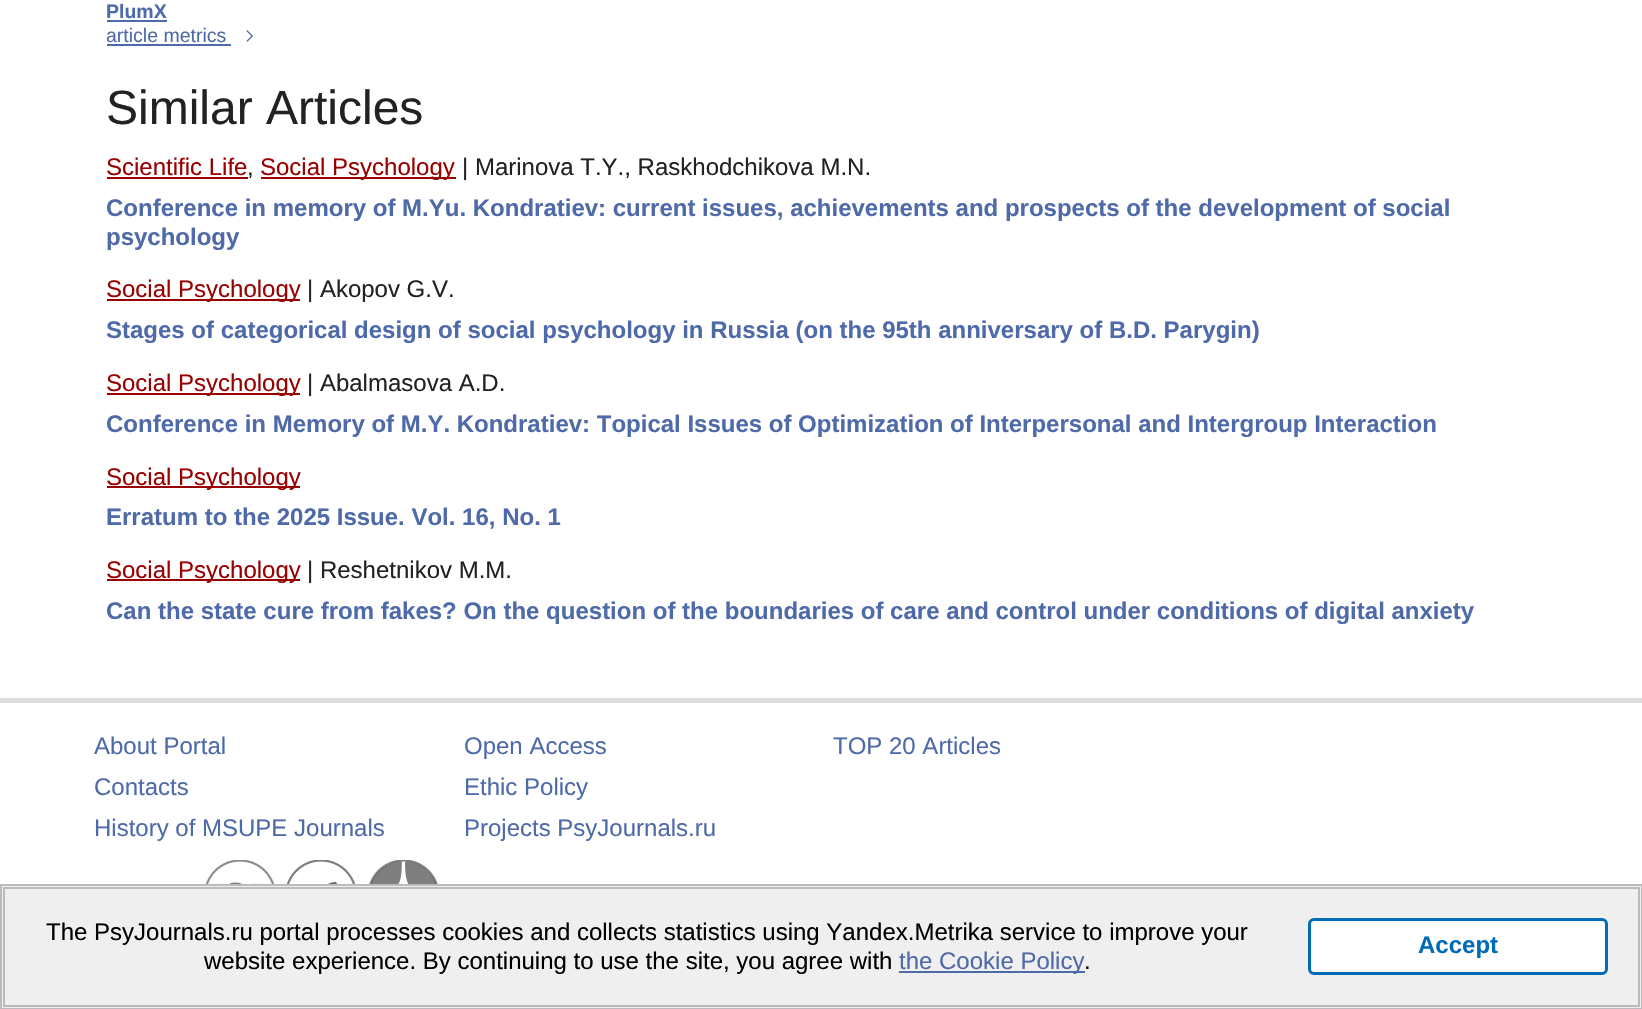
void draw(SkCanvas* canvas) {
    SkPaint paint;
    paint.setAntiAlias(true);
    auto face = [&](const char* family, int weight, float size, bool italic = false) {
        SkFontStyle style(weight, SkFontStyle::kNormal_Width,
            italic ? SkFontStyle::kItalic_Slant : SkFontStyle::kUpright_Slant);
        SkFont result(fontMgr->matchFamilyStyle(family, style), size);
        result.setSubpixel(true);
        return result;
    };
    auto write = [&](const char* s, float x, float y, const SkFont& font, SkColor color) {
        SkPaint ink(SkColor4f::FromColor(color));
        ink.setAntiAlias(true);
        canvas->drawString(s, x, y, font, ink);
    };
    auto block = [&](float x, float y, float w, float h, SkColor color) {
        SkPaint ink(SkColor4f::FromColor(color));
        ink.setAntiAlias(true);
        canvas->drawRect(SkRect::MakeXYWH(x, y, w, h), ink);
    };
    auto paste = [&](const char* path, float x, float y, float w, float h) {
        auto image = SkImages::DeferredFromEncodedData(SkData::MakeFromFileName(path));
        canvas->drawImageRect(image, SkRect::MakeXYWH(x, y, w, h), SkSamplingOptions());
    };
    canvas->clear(SK_ColorWHITE);
    auto kFont1 = face("Liberation Sans", 700, 19.5f);
    write("PlumX", 106, 18, kFont1, SkColorSetRGB(78, 106, 169));
    block(107, 20, 60, 2, SkColorSetRGB(78, 106, 169));
    auto kFont2 = face("Liberation Sans", 400, 19.5f);
    write("article metrics", 106, 42, kFont2, SkColorSetRGB(78, 106, 169));
    block(107, 44, 124, 2, SkColorSetRGB(78, 106, 169));
    paste("pic1.png", 246, 30, 7, 12);
    auto kFont3 = face("Liberation Sans", 400, 48);
    write("Similar Articles", 106, 124, kFont3, SkColorSetRGB(34, 34, 34));
    auto kFont4 = face("Liberation Sans", 400, 24);
    write("Scientific Life", 106, 175, kFont4, SkColorSetRGB(153, 0, 0));
    block(107, 177, 141, 2, SkColorSetRGB(153, 0, 0));
    write(",", 247, 175, kFont4, SkColorSetRGB(34, 34, 34));
    block(261, 177, 195, 2, SkColorSetRGB(153, 0, 0));
    write("Social Psychology", 260, 175, kFont4, SkColorSetRGB(153, 0, 0));
    write("| Marinova T.Y., Raskhodchikova M.N.", 462, 175, kFont4, SkColorSetRGB(34, 34, 34));
    auto kFont5 = face("Liberation Sans", 700, 24);
    write("Conference in memory of M.Yu. Kondratiev: current issues, achievements and prospects of the development of social", 106, 216, kFont5, SkColorSetRGB(78, 106, 169));
    write("psychology", 106, 245, kFont5, SkColorSetRGB(78, 106, 169));
    block(107, 299, 193, 2, SkColorSetRGB(153, 0, 0));
    write("Social Psychology", 106, 297, kFont4, SkColorSetRGB(153, 0, 0));
    write("| Akopov G.V.", 307, 297, kFont4, SkColorSetRGB(34, 34, 34));
    write("Stages of categorical design of social psychology in Russia (on the 95th anniversary of B.D. Parygin)", 106, 338, kFont5, SkColorSetRGB(78, 106, 169));
    block(107, 393, 193, 2, SkColorSetRGB(153, 0, 0));
    write("Social Psychology", 106, 391, kFont4, SkColorSetRGB(153, 0, 0));
    write("| Abalmasova A.D.", 307, 391, kFont4, SkColorSetRGB(34, 34, 34));
    write("Conference in Memory of M.Y. Kondratiev: Topical Issues of Optimization of Interpersonal and Intergroup Interaction", 106, 432, kFont5, SkColorSetRGB(78, 106, 169));
    block(107, 486, 193, 2, SkColorSetRGB(153, 0, 0));
    write("Social Psychology", 106, 485, kFont4, SkColorSetRGB(153, 0, 0));
    write("Erratum to the 2025 Issue. Vol. 16, No. 1", 106, 525, kFont5, SkColorSetRGB(78, 106, 169));
    block(107, 579, 193, 2, SkColorSetRGB(153, 0, 0));
    write("Social Psychology", 106, 578, kFont4, SkColorSetRGB(153, 0, 0));
    write("| Reshetnikov M.M.", 307, 578, kFont4, SkColorSetRGB(34, 34, 34));
    write("Can the state cure from fakes? On the question of the boundaries of care and control under conditions of digital anxiety", 106, 619, kFont5, SkColorSetRGB(78, 106, 169));
    block(0, 698, 1642, 5, SkColorSetRGB(221, 221, 221));
    write("About Portal", 94, 754, kFont4, SkColorSetRGB(78, 106, 169));
    write("Contacts", 94, 795, kFont4, SkColorSetRGB(78, 106, 169));
    write("History of MSUPE Journals", 94, 836, kFont4, SkColorSetRGB(78, 106, 169));
    write("Open Access", 464, 754, kFont4, SkColorSetRGB(78, 106, 169));
    write("Ethic Policy", 464, 795, kFont4, SkColorSetRGB(78, 106, 169));
    write("Projects PsyJournals.ru", 464, 836, kFont4, SkColorSetRGB(78, 106, 169));
    write("TOP 20 Articles", 833, 754, kFont4, SkColorSetRGB(78, 106, 169));
    paste("pic2.png", 205, 860, 70, 24);
    paste("pic3.png", 286, 860, 70, 24);
    paste("pic4.png", 369, 860, 69, 24);
    paint.setColor(SkColorSetRGB(239, 239, 239));
    canvas->drawRect(SkRect::MakeXYWH(1, 885, 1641, 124), paint);
    paint.setStyle(SkPaint::kStroke_Style);
    paint.setStrokeWidth(2);
    paint.setColor(SkColorSetRGB(189, 186, 189));
    canvas->drawRect(SkRect::MakeXYWH(1, 885, 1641, 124), paint);
    canvas->drawRect(SkRect::MakeXYWH(4, 888, 1635, 118), paint);
    write("The PsyJournals.ru portal processes cookies and collects statistics using Yandex.Metrika service to improve your", 46, 940, kFont4, SK_ColorBLACK);
    write("website experience. By continuing to use the site, you agree with", 204, 969, kFont4, SK_ColorBLACK);
    block(899, 971, 186, 2, SkColorSetRGB(78, 106, 169));
    write("the Cookie Policy", 899, 969, kFont4, SkColorSetRGB(78, 106, 169));
    write(".", 1084, 969, kFont4, SK_ColorBLACK);
    paint.setStyle(SkPaint::kFill_Style);
    paint.setColor(SK_ColorWHITE);
    canvas->drawRoundRect(SkRect::MakeXYWH(1309.5f, 919.5f, 297, 54), 4.5f, 4.5f, paint);
    paint.setStyle(SkPaint::kStroke_Style);
    paint.setStrokeWidth(3);
    paint.setColor(SkColorSetRGB(0, 108, 183));
    canvas->drawRoundRect(SkRect::MakeXYWH(1309.5f, 919.5f, 297, 54), 4.5f, 4.5f, paint);
    write("Accept", 1418, 953, kFont5, SkColorSetRGB(0, 108, 183));
}
